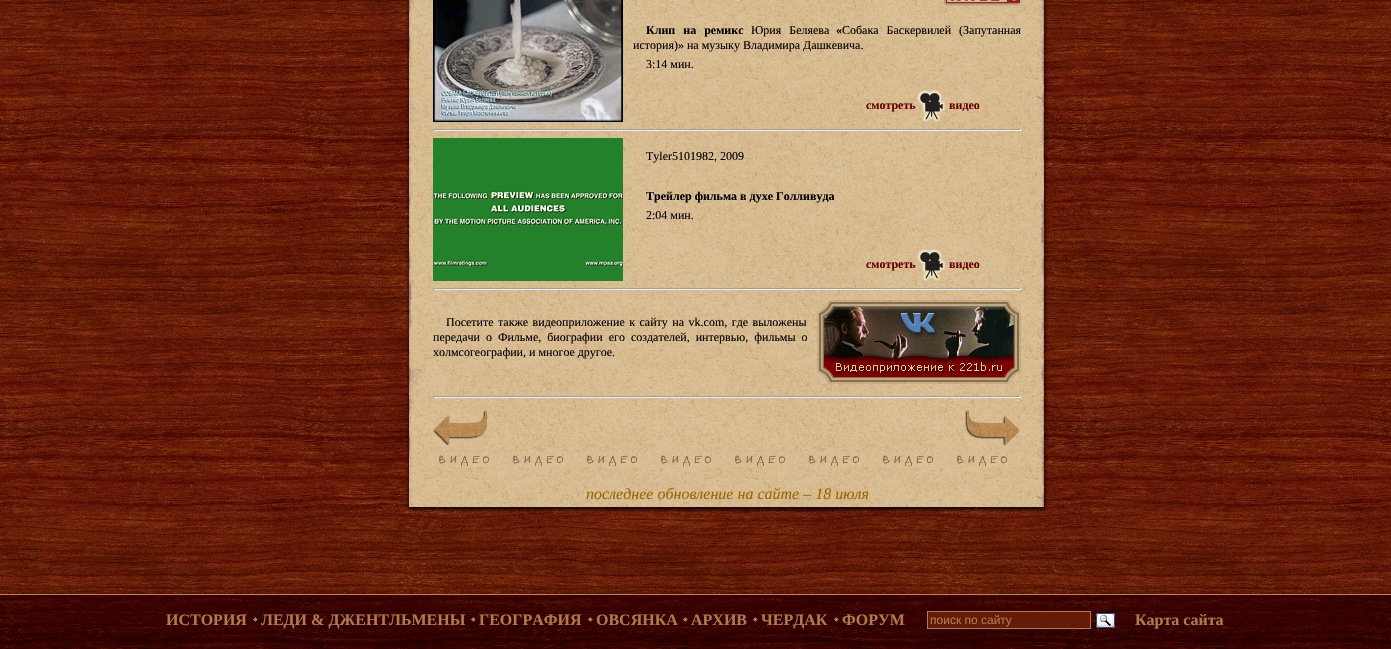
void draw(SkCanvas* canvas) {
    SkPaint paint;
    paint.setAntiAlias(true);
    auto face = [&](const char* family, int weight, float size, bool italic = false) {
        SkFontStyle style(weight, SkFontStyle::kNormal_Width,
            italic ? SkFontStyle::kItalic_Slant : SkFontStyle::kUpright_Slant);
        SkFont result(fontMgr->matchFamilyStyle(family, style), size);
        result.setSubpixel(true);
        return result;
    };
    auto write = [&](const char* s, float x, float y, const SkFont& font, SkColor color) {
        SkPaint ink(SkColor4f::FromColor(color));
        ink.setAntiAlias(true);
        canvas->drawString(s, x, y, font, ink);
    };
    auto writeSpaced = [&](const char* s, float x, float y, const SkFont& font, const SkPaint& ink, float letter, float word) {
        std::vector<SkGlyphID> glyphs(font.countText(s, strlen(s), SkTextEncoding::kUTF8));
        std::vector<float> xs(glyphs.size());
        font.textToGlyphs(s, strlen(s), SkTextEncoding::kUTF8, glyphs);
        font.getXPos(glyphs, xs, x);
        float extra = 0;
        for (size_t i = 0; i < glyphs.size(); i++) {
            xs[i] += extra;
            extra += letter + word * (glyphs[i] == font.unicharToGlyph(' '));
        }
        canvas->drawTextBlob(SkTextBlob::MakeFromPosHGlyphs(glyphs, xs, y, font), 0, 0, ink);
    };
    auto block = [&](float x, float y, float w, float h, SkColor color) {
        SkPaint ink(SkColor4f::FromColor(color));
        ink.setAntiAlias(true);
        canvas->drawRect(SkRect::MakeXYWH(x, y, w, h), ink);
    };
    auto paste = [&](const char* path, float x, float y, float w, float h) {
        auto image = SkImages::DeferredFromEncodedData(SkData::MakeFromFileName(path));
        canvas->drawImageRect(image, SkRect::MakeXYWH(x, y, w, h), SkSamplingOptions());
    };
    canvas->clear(SK_ColorWHITE);
    paste("pic1.png", 0, 0, 1391, 594);
    paint.setColor(SkColorSetARGB(128, 0, 0, 0));
    paint.setMaskFilter(SkMaskFilter::MakeBlur(kNormal_SkBlurStyle, 1.5f));
    canvas->drawRect(SkRect::MakeXYWH(408, -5, 635, 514), paint);
    paint.setMaskFilter(nullptr);
    paint.setMaskFilter(SkMaskFilter::MakeBlur(kNormal_SkBlurStyle, 1.5f));
    canvas->drawRect(SkRect::MakeXYWH(411, -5, 635, 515), paint);
    paint.setMaskFilter(nullptr);
    paste("pic2.png", 409, 0, 635, 507);
    paste("pic3.png", 433, 0, 190, 122);
    paste("pic4.png", 943, 0, 78, 6);
    auto kFont1 = face("Liberation Serif", 700, 12);
    paint.setColor(SK_ColorBLACK);
    writeSpaced("Клип на ремикс", 646, 34, kFont1, paint, 0, 5);
    auto kFont2 = face("Liberation Serif", 400, 12);
    writeSpaced("Юрия Беляева", 751, 34, kFont2, paint, 0, 5);
    write("«", 836, 34, kFont1, SK_ColorBLACK);
    writeSpaced("Собака Баскервилей (Запутанная", 842, 34, kFont2, paint, 0, 5);
    write("история)» на музыку Владимира Дашкевича.", 633, 49, kFont2, SK_ColorBLACK);
    write("3:14 мин.", 646, 68, kFont2, SK_ColorBLACK);
    write("смотреть", 866, 109, kFont1, SkColorSetRGB(102, 0, 0));
    paste("pic5.png", 916, 89, 30, 34);
    write("видео", 949, 109, kFont1, SkColorSetRGB(102, 0, 0));
    block(433, 129, 588, 1, SkColorSetRGB(159, 159, 159));
    block(1020, 129, 1, 2, SkColorSetRGB(238, 238, 238));
    block(433, 130, 588, 1, SkColorSetRGB(238, 238, 238));
    block(433, 129, 1, 2, SkColorSetRGB(159, 159, 159));
    paste("pic6.png", 433, 138, 190, 143);
    write("Tyler5101982, 2009", 646, 160, kFont2, SK_ColorBLACK);
    write("Трейлер фильма в духе Голливуда", 646, 200, kFont1, SK_ColorBLACK);
    write("2:04 мин.", 646, 219, kFont2, SK_ColorBLACK);
    write("смотреть", 866, 268, kFont1, SkColorSetRGB(102, 0, 0));
    paste("pic7.png", 916, 248, 30, 34);
    write("видео", 949, 268, kFont1, SkColorSetRGB(102, 0, 0));
    block(433, 288, 588, 1, SkColorSetRGB(159, 159, 159));
    block(1020, 288, 1, 2, SkColorSetRGB(238, 238, 238));
    block(433, 289, 588, 1, SkColorSetRGB(238, 238, 238));
    block(433, 288, 1, 2, SkColorSetRGB(159, 159, 159));
    writeSpaced("Посетите также видеоприложение к сайту на vk.com, где выложены", 446, 326, kFont2, paint, 0, 1.5f);
    writeSpaced("передачи о Фильме, биографии его создателей, интервью, фильмы о", 433, 341, kFont2, paint, 0, 3);
    write("холмсогеографии, и многое другое.", 433, 356, kFont2, SK_ColorBLACK);
    paste("pic8.png", 817, 300, 204, 84);
    block(433, 396, 588, 1, SkColorSetRGB(159, 159, 159));
    block(1020, 396, 1, 2, SkColorSetRGB(238, 238, 238));
    block(433, 397, 588, 1, SkColorSetRGB(238, 238, 238));
    block(433, 396, 1, 2, SkColorSetRGB(159, 159, 159));
    paste("pic9.png", 433, 408, 56, 38);
    paste("pic10.png", 965, 408, 56, 38);
    paste("pic11.png", 433, 452, 588, 15);
    auto kFont3 = face("Liberation Serif", 400, 16, true);
    write("последнее обновление на сайте – 18 июля", 586, 499, kFont3, SkColorSetRGB(153, 102, 0));
    paste("pic12.png", 0, 595, 1391, 54);
    block(0, 594, 1391, 1, SkColorSetRGB(191, 127, 79));
    auto kFont4 = face("Liberation Serif", 700, 16);
    write("ИСТОРИЯ", 166, 625, kFont4, SkColorSetRGB(176, 123, 71));
    paste("pic13.png", 253, 617, 5, 5);
    write("ЛЕДИ & ДЖЕНТЛЬМЕНЫ", 261, 625, kFont4, SkColorSetRGB(176, 123, 71));
    paste("pic14.png", 471, 617, 5, 5);
    write("ГЕОГРАФИЯ", 479, 625, kFont4, SkColorSetRGB(176, 123, 71));
    paste("pic15.png", 588, 617, 5, 5);
    write("ОВСЯНКА", 596, 625, kFont4, SkColorSetRGB(176, 123, 71));
    paste("pic16.png", 683, 617, 5, 5);
    write("АРХИВ", 691, 625, kFont4, SkColorSetRGB(176, 123, 71));
    paste("pic17.png", 753, 617, 5, 5);
    write("ЧЕРДАК", 761, 625, kFont4, SkColorSetRGB(176, 123, 71));
    paste("pic18.png", 834, 617, 5, 5);
    write("ФОРУМ", 842, 625, kFont4, SkColorSetRGB(176, 123, 71));
    paint.setColor(SkColorSetRGB(100, 27, 8));
    canvas->drawRect(SkRect::MakeXYWH(927.5f, 611.5f, 163, 17), paint);
    paint.setStyle(SkPaint::kStroke_Style);
    paint.setStrokeWidth(1);
    paint.setColor(SkColorSetRGB(176, 123, 71));
    canvas->drawRect(SkRect::MakeXYWH(927.5f, 611.5f, 163, 17), paint);
    auto kFont5 = face("Liberation Sans", 400, 12);
    write("поиск по сайту", 930, 624, kFont5, SkColorSetRGB(176, 123, 71));
    paste("pic19.png", 1096, 613, 19, 15);
    write("Карта сайта", 1135, 625, kFont4, SkColorSetRGB(176, 123, 71));
}
